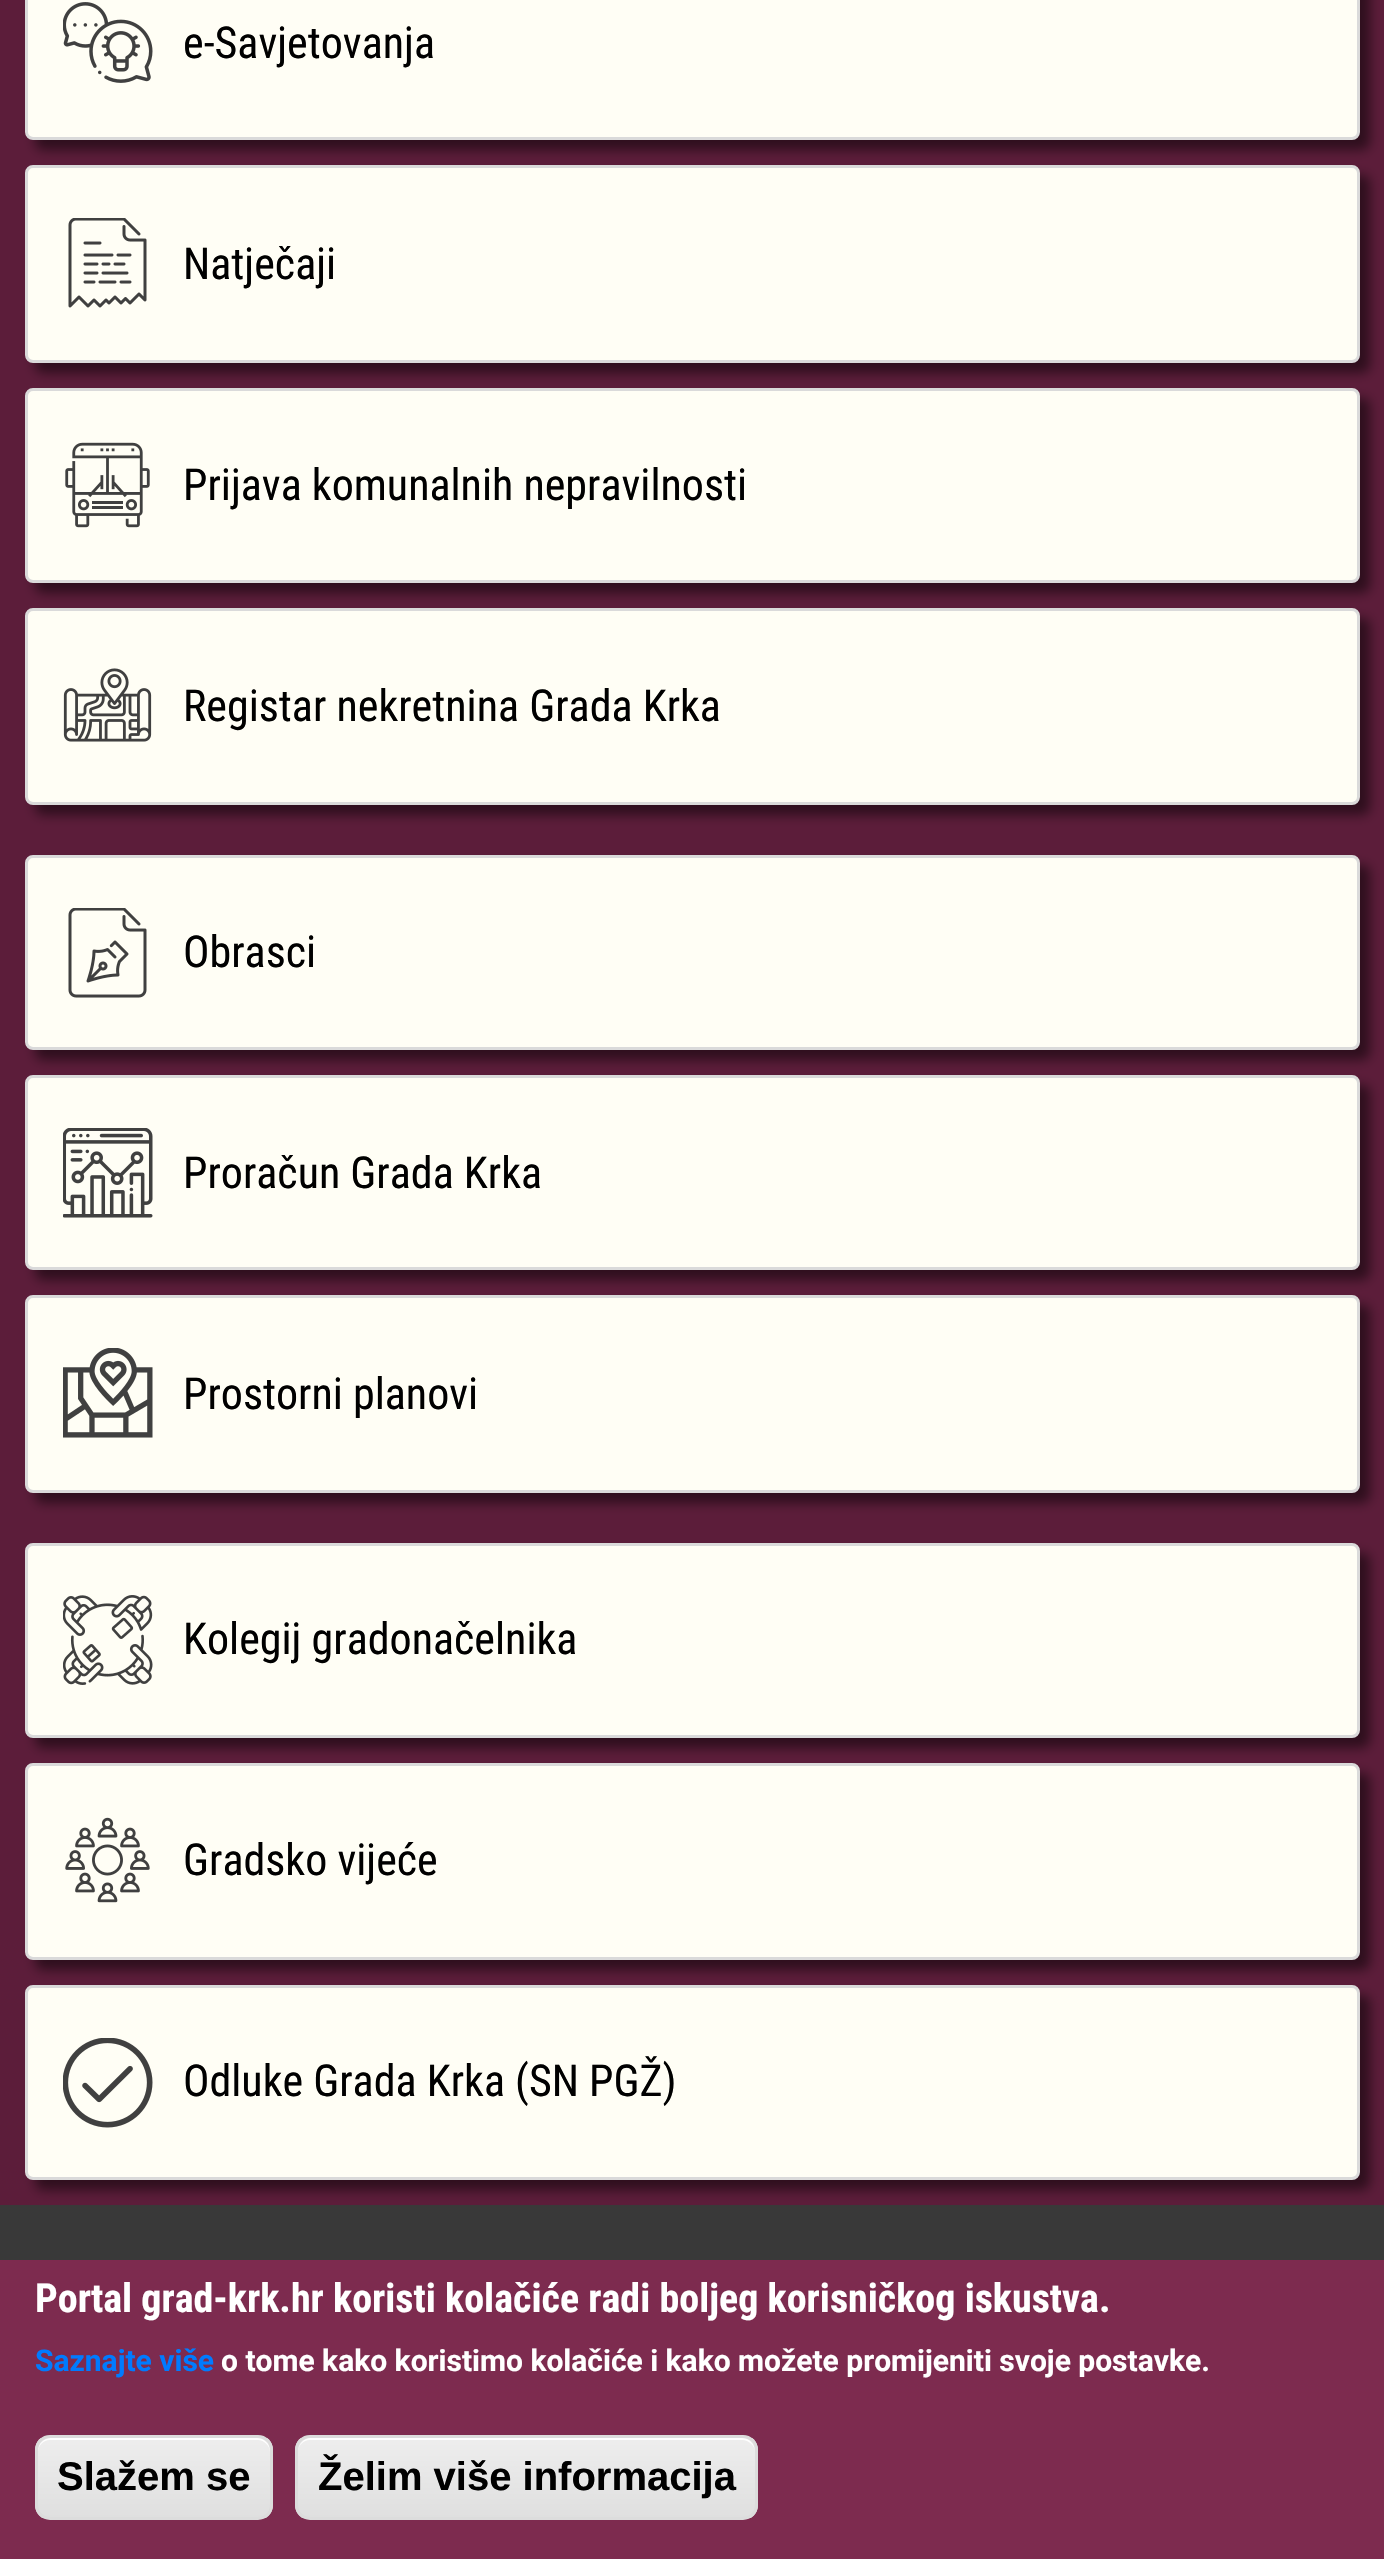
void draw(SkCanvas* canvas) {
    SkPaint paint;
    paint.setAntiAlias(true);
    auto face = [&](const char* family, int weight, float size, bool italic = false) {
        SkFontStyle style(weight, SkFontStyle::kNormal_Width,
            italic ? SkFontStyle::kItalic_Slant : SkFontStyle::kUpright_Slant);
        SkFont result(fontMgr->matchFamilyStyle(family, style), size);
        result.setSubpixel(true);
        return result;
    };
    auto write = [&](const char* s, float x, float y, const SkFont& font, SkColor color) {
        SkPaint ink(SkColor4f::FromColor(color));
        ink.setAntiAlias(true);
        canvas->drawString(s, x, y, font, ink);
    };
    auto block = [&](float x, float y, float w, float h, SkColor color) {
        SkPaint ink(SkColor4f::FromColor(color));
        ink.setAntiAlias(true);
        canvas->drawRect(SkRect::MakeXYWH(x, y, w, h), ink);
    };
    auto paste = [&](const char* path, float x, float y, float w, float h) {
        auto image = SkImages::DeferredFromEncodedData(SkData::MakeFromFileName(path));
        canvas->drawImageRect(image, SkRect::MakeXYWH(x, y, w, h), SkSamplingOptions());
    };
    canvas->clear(SkColorSetRGB(92, 29, 58));
    paint.setColor(SkColorSetARGB(128, 0, 0, 0));
    paint.setMaskFilter(SkMaskFilter::MakeBlur(kNormal_SkBlurStyle, 6));
    canvas->drawRoundRect(SkRect::MakeXYWH(35, -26, 1335, 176), 8, 8, paint);
    paint.setMaskFilter(nullptr);
    paint.setColor(SkColorSetRGB(255, 254, 245));
    canvas->drawRoundRect(SkRect::MakeXYWH(26.5f, -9.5f, 1332, 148), 6.5f, 6.5f, paint);
    paint.setStyle(SkPaint::kStroke_Style);
    paint.setStrokeWidth(3);
    paint.setColor(SkColorSetRGB(218, 218, 218));
    canvas->drawRoundRect(SkRect::MakeXYWH(26.5f, -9.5f, 1332, 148), 6.5f, 6.5f, paint);
    paste("pic1.png", 63, 2, 90, 81);
    auto kFont1 = face("Roboto Condensed", 400, 44);
    write("e-Savjetovanja", 183, 58, kFont1, SK_ColorBLACK);
    paint.setStyle(SkPaint::kFill_Style);
    paint.setColor(SkColorSetARGB(128, 0, 0, 0));
    paint.setMaskFilter(SkMaskFilter::MakeBlur(kNormal_SkBlurStyle, 6));
    canvas->drawRoundRect(SkRect::MakeXYWH(35, 175, 1335, 198), 8, 8, paint);
    paint.setMaskFilter(nullptr);
    paint.setColor(SkColorSetRGB(255, 254, 245));
    canvas->drawRoundRect(SkRect::MakeXYWH(26.5f, 166.5f, 1332, 195), 6.5f, 6.5f, paint);
    paint.setStyle(SkPaint::kStroke_Style);
    paint.setColor(SkColorSetRGB(218, 218, 218));
    canvas->drawRoundRect(SkRect::MakeXYWH(26.5f, 166.5f, 1332, 195), 6.5f, 6.5f, paint);
    paste("pic2.png", 68, 218, 79, 90);
    write("Natječaji", 183, 279, kFont1, SK_ColorBLACK);
    paint.setStyle(SkPaint::kFill_Style);
    paint.setColor(SkColorSetARGB(128, 0, 0, 0));
    paint.setMaskFilter(SkMaskFilter::MakeBlur(kNormal_SkBlurStyle, 6));
    canvas->drawRoundRect(SkRect::MakeXYWH(35, 398, 1335, 195), 8, 8, paint);
    paint.setMaskFilter(nullptr);
    paint.setColor(SkColorSetRGB(255, 254, 245));
    canvas->drawRoundRect(SkRect::MakeXYWH(26.5f, 389.5f, 1332, 192), 6.5f, 6.5f, paint);
    paint.setStyle(SkPaint::kStroke_Style);
    paint.setColor(SkColorSetRGB(218, 218, 218));
    canvas->drawRoundRect(SkRect::MakeXYWH(26.5f, 389.5f, 1332, 192), 6.5f, 6.5f, paint);
    paste("pic3.png", 65, 442, 85, 86);
    write("Prijava komunalnih nepravilnosti", 183, 500, kFont1, SK_ColorBLACK);
    paint.setStyle(SkPaint::kFill_Style);
    paint.setColor(SkColorSetARGB(128, 0, 0, 0));
    paint.setMaskFilter(SkMaskFilter::MakeBlur(kNormal_SkBlurStyle, 6));
    canvas->drawRoundRect(SkRect::MakeXYWH(35, 618, 1335, 197), 8, 8, paint);
    paint.setMaskFilter(nullptr);
    paint.setColor(SkColorSetRGB(255, 254, 245));
    canvas->drawRoundRect(SkRect::MakeXYWH(26.5f, 609.5f, 1332, 194), 6.5f, 6.5f, paint);
    paint.setStyle(SkPaint::kStroke_Style);
    paint.setColor(SkColorSetRGB(218, 218, 218));
    canvas->drawRoundRect(SkRect::MakeXYWH(26.5f, 609.5f, 1332, 194), 6.5f, 6.5f, paint);
    paste("pic4.png", 63, 668, 89, 74);
    write("Registar nekretnina Grada Krka", 183, 721, kFont1, SK_ColorBLACK);
    paint.setStyle(SkPaint::kFill_Style);
    paint.setColor(SkColorSetARGB(128, 0, 0, 0));
    paint.setMaskFilter(SkMaskFilter::MakeBlur(kNormal_SkBlurStyle, 6));
    canvas->drawRoundRect(SkRect::MakeXYWH(35, 865, 1335, 195), 8, 8, paint);
    paint.setMaskFilter(nullptr);
    paint.setColor(SkColorSetRGB(255, 254, 245));
    canvas->drawRoundRect(SkRect::MakeXYWH(26.5f, 856.5f, 1332, 192), 6.5f, 6.5f, paint);
    paint.setStyle(SkPaint::kStroke_Style);
    paint.setColor(SkColorSetRGB(218, 218, 218));
    canvas->drawRoundRect(SkRect::MakeXYWH(26.5f, 856.5f, 1332, 192), 6.5f, 6.5f, paint);
    paste("pic5.png", 68, 908, 79, 90);
    write("Obrasci", 183, 967, kFont1, SK_ColorBLACK);
    paint.setStyle(SkPaint::kFill_Style);
    paint.setColor(SkColorSetARGB(128, 0, 0, 0));
    paint.setMaskFilter(SkMaskFilter::MakeBlur(kNormal_SkBlurStyle, 6));
    canvas->drawRoundRect(SkRect::MakeXYWH(35, 1085, 1335, 195), 8, 8, paint);
    paint.setMaskFilter(nullptr);
    paint.setColor(SkColorSetRGB(255, 254, 245));
    canvas->drawRoundRect(SkRect::MakeXYWH(26.5f, 1076.5f, 1332, 192), 6.5f, 6.5f, paint);
    paint.setStyle(SkPaint::kStroke_Style);
    paint.setColor(SkColorSetRGB(218, 218, 218));
    canvas->drawRoundRect(SkRect::MakeXYWH(26.5f, 1076.5f, 1332, 192), 6.5f, 6.5f, paint);
    paste("pic6.png", 63, 1128, 90, 90);
    write("Proračun Grada Krka", 183, 1188, kFont1, SK_ColorBLACK);
    paint.setStyle(SkPaint::kFill_Style);
    paint.setColor(SkColorSetARGB(128, 0, 0, 0));
    paint.setMaskFilter(SkMaskFilter::MakeBlur(kNormal_SkBlurStyle, 6));
    canvas->drawRoundRect(SkRect::MakeXYWH(35, 1305, 1335, 198), 8, 8, paint);
    paint.setMaskFilter(nullptr);
    paint.setColor(SkColorSetRGB(255, 254, 245));
    canvas->drawRoundRect(SkRect::MakeXYWH(26.5f, 1296.5f, 1332, 195), 6.5f, 6.5f, paint);
    paint.setStyle(SkPaint::kStroke_Style);
    paint.setColor(SkColorSetRGB(218, 218, 218));
    canvas->drawRoundRect(SkRect::MakeXYWH(26.5f, 1296.5f, 1332, 195), 6.5f, 6.5f, paint);
    paste("pic7.png", 63, 1348, 90, 90);
    write("Prostorni planovi", 183, 1409, kFont1, SK_ColorBLACK);
    paint.setStyle(SkPaint::kFill_Style);
    paint.setColor(SkColorSetARGB(128, 0, 0, 0));
    paint.setMaskFilter(SkMaskFilter::MakeBlur(kNormal_SkBlurStyle, 6));
    canvas->drawRoundRect(SkRect::MakeXYWH(35, 1553, 1335, 195), 8, 8, paint);
    paint.setMaskFilter(nullptr);
    paint.setColor(SkColorSetRGB(255, 254, 245));
    canvas->drawRoundRect(SkRect::MakeXYWH(26.5f, 1544.5f, 1332, 192), 6.5f, 6.5f, paint);
    paint.setStyle(SkPaint::kStroke_Style);
    paint.setColor(SkColorSetRGB(218, 218, 218));
    canvas->drawRoundRect(SkRect::MakeXYWH(26.5f, 1544.5f, 1332, 192), 6.5f, 6.5f, paint);
    paste("pic8.png", 63, 1595, 90, 90);
    write("Kolegij gradonačelnika", 183, 1654, kFont1, SK_ColorBLACK);
    paint.setStyle(SkPaint::kFill_Style);
    paint.setColor(SkColorSetARGB(128, 0, 0, 0));
    paint.setMaskFilter(SkMaskFilter::MakeBlur(kNormal_SkBlurStyle, 6));
    canvas->drawRoundRect(SkRect::MakeXYWH(35, 1773, 1335, 197), 8, 8, paint);
    paint.setMaskFilter(nullptr);
    paint.setColor(SkColorSetRGB(255, 254, 245));
    canvas->drawRoundRect(SkRect::MakeXYWH(26.5f, 1764.5f, 1332, 194), 6.5f, 6.5f, paint);
    paint.setStyle(SkPaint::kStroke_Style);
    paint.setColor(SkColorSetRGB(218, 218, 218));
    canvas->drawRoundRect(SkRect::MakeXYWH(26.5f, 1764.5f, 1332, 194), 6.5f, 6.5f, paint);
    paste("pic9.png", 65, 1817, 85, 86);
    write("Gradsko vijeće", 183, 1875, kFont1, SK_ColorBLACK);
    paint.setStyle(SkPaint::kFill_Style);
    paint.setColor(SkColorSetARGB(128, 0, 0, 0));
    paint.setMaskFilter(SkMaskFilter::MakeBlur(kNormal_SkBlurStyle, 6));
    canvas->drawRoundRect(SkRect::MakeXYWH(35, 1995, 1335, 195), 8, 8, paint);
    paint.setMaskFilter(nullptr);
    paint.setColor(SkColorSetRGB(255, 254, 245));
    canvas->drawRoundRect(SkRect::MakeXYWH(26.5f, 1986.5f, 1332, 192), 6.5f, 6.5f, paint);
    paint.setStyle(SkPaint::kStroke_Style);
    paint.setColor(SkColorSetRGB(218, 218, 218));
    canvas->drawRoundRect(SkRect::MakeXYWH(26.5f, 1986.5f, 1332, 192), 6.5f, 6.5f, paint);
    paste("pic10.png", 63, 2038, 90, 90);
    write("Odluke Grada Krka (SN PGŽ)", 183, 2096, kFont1, SK_ColorBLACK);
    block(0, 2205, 1384, 55, SkColorSetRGB(57, 57, 57));
    block(0, 2260, 1384, 299, SkColorSetRGB(125, 43, 79));
    auto kFont2 = face("Roboto Condensed", 700, 40);
    write("Portal grad-krk.hr koristi kolačiće radi boljeg korisničkog iskustva.", 35, 2312, kFont2, SK_ColorWHITE);
    auto kFont3 = face("Roboto", 700, 30);
    write("Saznajte više", 35, 2371, kFont3, SkColorSetRGB(0, 123, 255));
    write("o tome kako koristimo kolačiće i kako možete promijeniti svoje postavke.", 221, 2371, kFont3, SK_ColorWHITE);
    canvas->save();
    canvas->clipPath(SkPathBuilder().moveTo(50, 2435).lineTo(258, 2435).cubicTo(266.5f, 2435, 273, 2441.5f, 273, 2450).lineTo(273, 2505).cubicTo(273, 2513.5f, 266.5f, 2520, 258, 2520).lineTo(50, 2520).cubicTo(41.5f, 2520, 35, 2513.5f, 35, 2505).lineTo(35, 2450).cubicTo(35, 2441.5f, 41.5f, 2435, 50, 2435).close().detach(), true);
    paint.setStyle(SkPaint::kFill_Style);
    {
        const SkColor colors[] = {SkColorSetRGB(237, 237, 237), SkColorSetRGB(223, 223, 223)};
        const float stops[] = {0.05f, 1};
        const SkPoint ends[] = {{154, 2438}, {154, 2518}};
        paint.setShader(SkGradientShader::MakeLinear(ends, colors, stops, 2, SkTileMode::kClamp));
        paint.setAlpha(255);
    }
    canvas->drawRect(SkRect::MakeXYWH(35, 2438, 238, 80), paint);
    canvas->restore();
    paint.setShader(nullptr);
    paint.setColor(SK_ColorWHITE);
    canvas->drawPath(SkPathBuilder().moveTo(50, 2440).lineTo(258, 2440).cubicTo(264, 2440, 270, 2446, 270, 2452).lineTo(270, 2451).cubicTo(270, 2444, 264, 2438, 257, 2438).lineTo(51, 2438).cubicTo(44, 2438, 38, 2444, 38, 2451).lineTo(38, 2452).cubicTo(38, 2446, 43, 2440, 50, 2440).close().detach(), paint);
    paint.setStyle(SkPaint::kStroke_Style);
    paint.setColor(SkColorSetRGB(220, 220, 220));
    canvas->drawRoundRect(SkRect::MakeXYWH(36.5f, 2436.5f, 235, 82), 13.5f, 13.5f, paint);
    auto kFont4 = face("Liberation Sans", 700, 40);
    write("Slažem se", 57, 2490, kFont4, SK_ColorBLACK);
    canvas->save();
    canvas->clipPath(SkPathBuilder().moveTo(310, 2435).lineTo(743, 2435).cubicTo(751.5f, 2435, 758, 2441.5f, 758, 2450).lineTo(758, 2505).cubicTo(758, 2513.5f, 751.5f, 2520, 743, 2520).lineTo(310, 2520).cubicTo(301.5f, 2520, 295, 2513.5f, 295, 2505).lineTo(295, 2450).cubicTo(295, 2441.5f, 301.5f, 2435, 310, 2435).close().detach(), true);
    paint.setStyle(SkPaint::kFill_Style);
    {
        const SkColor colors[] = {SkColorSetRGB(237, 237, 237), SkColorSetRGB(223, 223, 223)};
        const float stops[] = {0.05f, 1};
        const SkPoint ends[] = {{526, 2438}, {526, 2518}};
        paint.setShader(SkGradientShader::MakeLinear(ends, colors, stops, 2, SkTileMode::kClamp));
        paint.setAlpha(255);
    }
    canvas->drawRect(SkRect::MakeXYWH(295, 2438, 463, 80), paint);
    canvas->restore();
    paint.setShader(nullptr);
    paint.setColor(SK_ColorWHITE);
    canvas->drawPath(SkPathBuilder().moveTo(310, 2440).lineTo(742, 2440).cubicTo(749, 2440, 755, 2446, 755, 2452).cubicTo(755, 2445, 750, 2438, 742, 2438).lineTo(308, 2438).cubicTo(302, 2440, 298, 2446, 298, 2452).cubicTo(298, 2446, 303, 2440, 310, 2440).close().detach(), paint);
    paint.setStyle(SkPaint::kStroke_Style);
    paint.setColor(SkColorSetRGB(220, 220, 220));
    canvas->drawRoundRect(SkRect::MakeXYWH(296.5f, 2436.5f, 460, 82), 13.5f, 13.5f, paint);
    write("Želim više informacija", 318, 2490, kFont4, SK_ColorBLACK);
}
